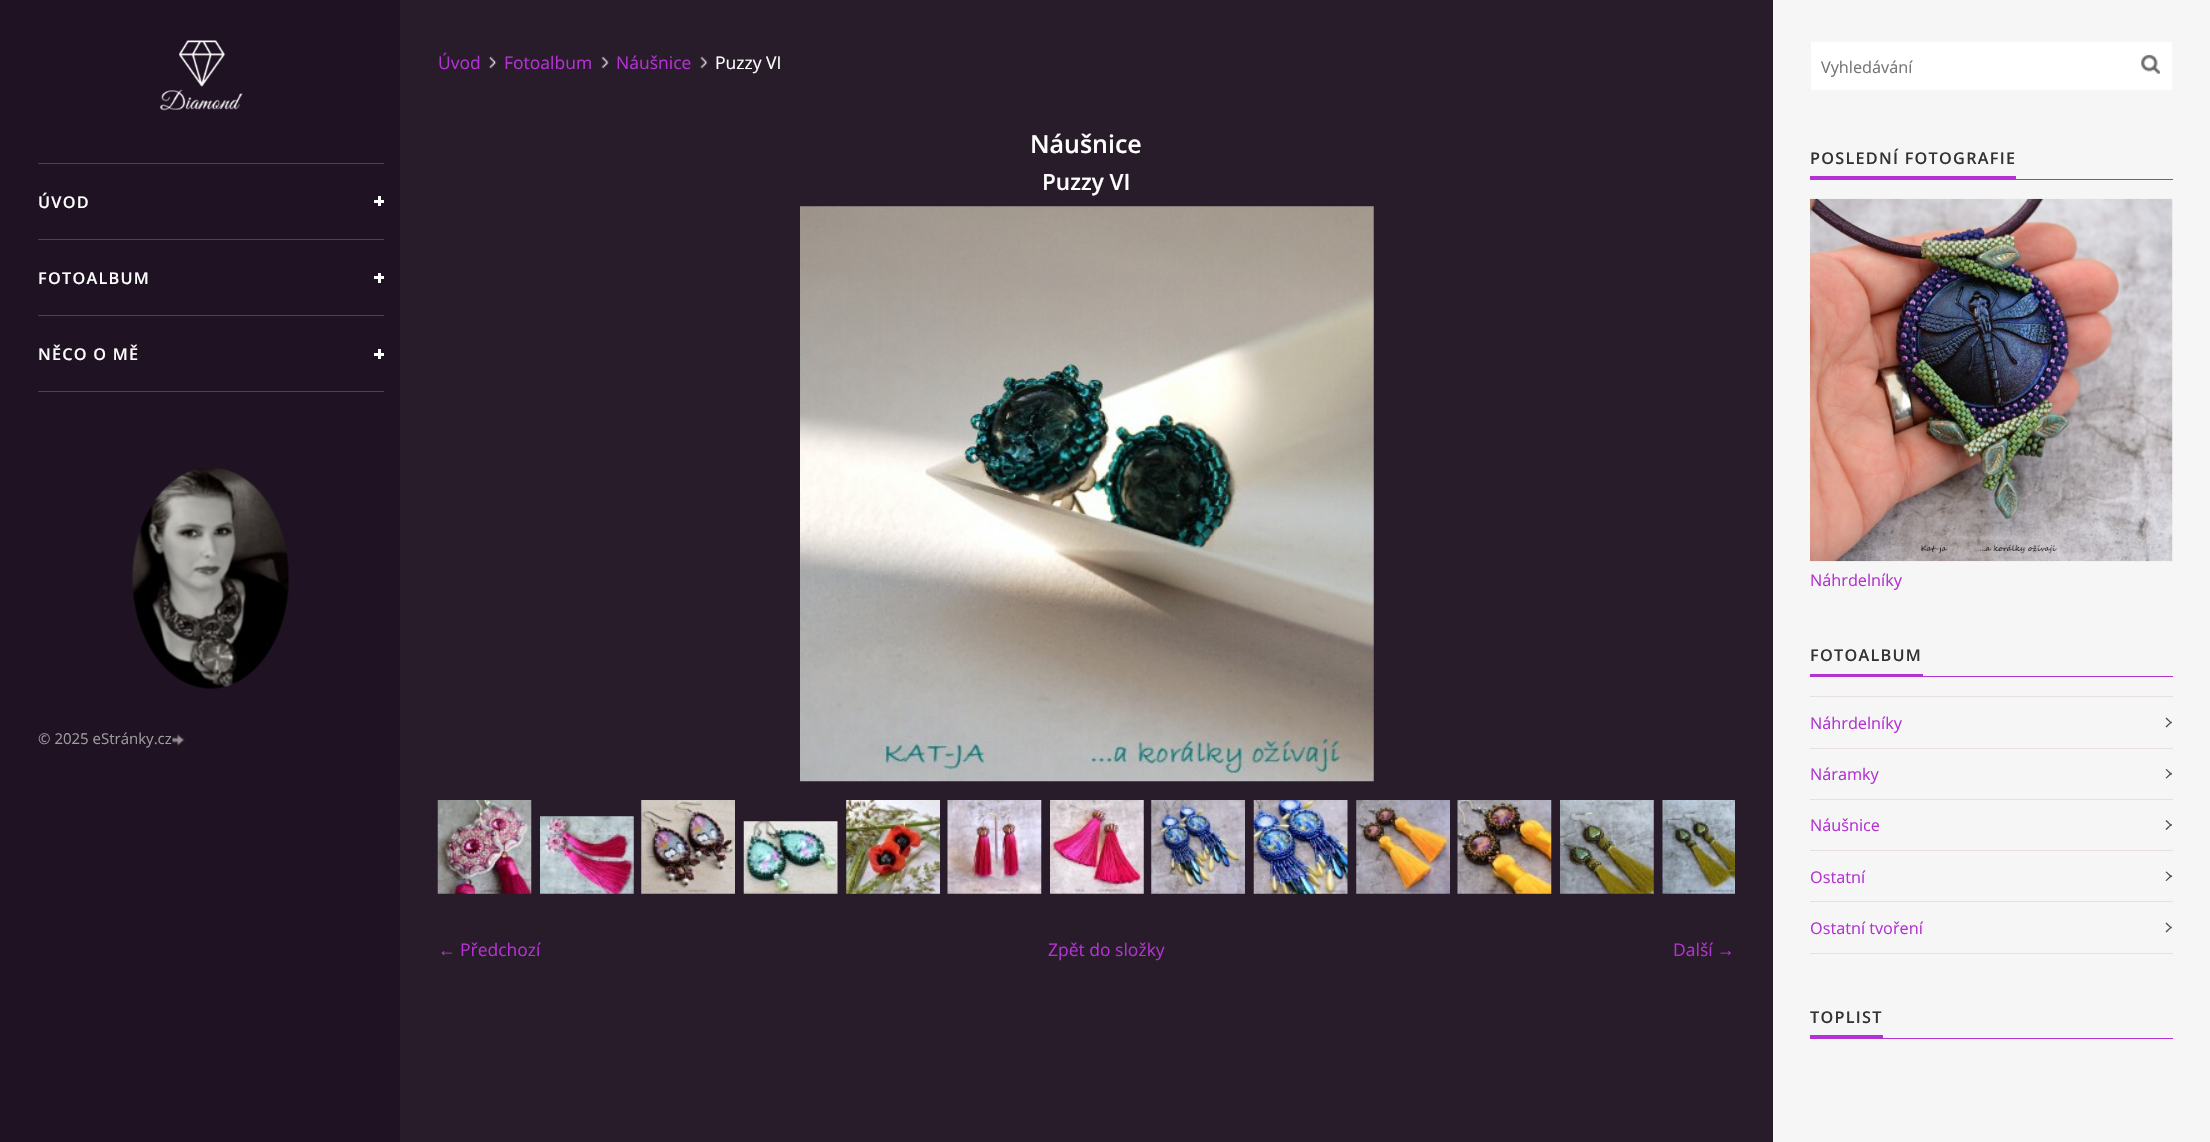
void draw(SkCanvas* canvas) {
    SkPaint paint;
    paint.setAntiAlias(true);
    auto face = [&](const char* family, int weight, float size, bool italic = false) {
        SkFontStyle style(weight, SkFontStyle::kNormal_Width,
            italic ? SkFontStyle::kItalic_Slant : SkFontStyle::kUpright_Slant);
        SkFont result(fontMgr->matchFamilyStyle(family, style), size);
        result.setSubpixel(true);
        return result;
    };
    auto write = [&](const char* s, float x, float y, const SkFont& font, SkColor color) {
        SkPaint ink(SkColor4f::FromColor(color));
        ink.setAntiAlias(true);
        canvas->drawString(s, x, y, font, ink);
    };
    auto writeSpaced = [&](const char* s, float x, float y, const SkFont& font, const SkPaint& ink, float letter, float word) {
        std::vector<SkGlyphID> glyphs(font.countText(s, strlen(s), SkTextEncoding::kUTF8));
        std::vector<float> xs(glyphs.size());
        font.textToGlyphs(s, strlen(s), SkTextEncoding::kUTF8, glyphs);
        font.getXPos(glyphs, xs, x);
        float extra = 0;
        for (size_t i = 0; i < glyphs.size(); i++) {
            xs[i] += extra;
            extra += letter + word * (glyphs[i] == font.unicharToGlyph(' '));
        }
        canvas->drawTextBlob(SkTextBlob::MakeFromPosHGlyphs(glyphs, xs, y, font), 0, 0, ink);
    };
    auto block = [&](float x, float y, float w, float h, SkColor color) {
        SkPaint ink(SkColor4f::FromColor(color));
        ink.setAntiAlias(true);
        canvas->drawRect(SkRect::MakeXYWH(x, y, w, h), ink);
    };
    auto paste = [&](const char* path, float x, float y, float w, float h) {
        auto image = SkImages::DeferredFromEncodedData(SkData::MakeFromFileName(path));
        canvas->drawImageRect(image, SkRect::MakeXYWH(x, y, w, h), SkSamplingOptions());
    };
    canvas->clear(SkColorSetRGB(40, 28, 42));
    block(0, 0, 400, 1142, SkColorSetRGB(31, 19, 35));
    paste("pic1.png", 160, 40, 83, 71);
    block(38, 163, 346, 1, SkColorSetRGB(76, 66, 79));
    auto kFont1 = face("Open Sans", 600, 16.25f);
    paint.setColor(SK_ColorWHITE);
    writeSpaced("ÚVOD", 38, 208, kFont1, paint, 1.25f, 0);
    block(374, 200, 10, 3, SK_ColorWHITE);
    block(378, 196, 3, 10, SK_ColorWHITE);
    block(38, 239, 346, 1, SkColorSetRGB(76, 66, 79));
    writeSpaced("FOTOALBUM", 38, 284, kFont1, paint, 1.25f, 0);
    block(374, 276, 10, 3, SK_ColorWHITE);
    block(378, 273, 3, 10, SK_ColorWHITE);
    block(38, 315, 346, 1, SkColorSetRGB(76, 66, 79));
    block(38, 391, 346, 1, SkColorSetRGB(76, 66, 79));
    writeSpaced("NĚCO O MĚ", 38, 360, kFont1, paint, 1.25f, 0);
    block(374, 353, 10, 3, SK_ColorWHITE);
    block(378, 349, 3, 10, SK_ColorWHITE);
    paste("pic2.png", 132, 467, 157, 222);
    auto kFont2 = face("Open Sans", 400, 15);
    write("© 2025 eStránky.cz", 38, 744, kFont2, SkColorSetRGB(156, 156, 156));
    paste("pic3.png", 172, 734, 13, 12);
    paste("pic4.png", 488, 56, 9, 13);
    auto kFont3 = face("Open Sans", 400, 17.5f);
    write("Úvod", 438, 69, kFont3, SkColorSetRGB(179, 50, 210));
    paste("pic5.png", 601, 56, 8, 13);
    write("Fotoalbum", 504, 69, kFont3, SkColorSetRGB(179, 50, 210));
    paste("pic6.png", 700, 56, 8, 13);
    write("Náušnice", 616, 69, kFont3, SkColorSetRGB(179, 50, 210));
    write("Puzzy VI", 715, 69, kFont3, SK_ColorWHITE);
    auto kFont4 = face("Open Sans", 600, 25);
    write("Náušnice", 1030, 153, kFont4, SK_ColorWHITE);
    auto kFont5 = face("Open Sans", 600, 22.5f);
    write("Puzzy VI", 1042, 190, kFont5, SK_ColorWHITE);
    paste("pic7.png", 800, 206, 574, 576);
    paste("pic8.png", 437, 800, 95, 94);
    paste("pic9.png", 540, 816, 94, 78);
    paste("pic10.png", 641, 800, 94, 94);
    paste("pic11.png", 743, 821, 95, 73);
    paste("pic12.png", 846, 800, 94, 94);
    paste("pic13.png", 947, 800, 95, 94);
    paste("pic14.png", 1050, 800, 94, 94);
    paste("pic15.png", 1151, 800, 94, 94);
    paste("pic16.png", 1253, 800, 95, 94);
    paste("pic17.png", 1356, 800, 94, 94);
    paste("pic18.png", 1457, 800, 95, 94);
    paste("pic19.png", 1560, 800, 94, 94);
    paste("pic20.png", 1662, 800, 73, 94);
    auto kFont6 = face("Liberation Serif", 400, 17.5f);
    write("←", 438, 956, kFont6, SkColorSetRGB(179, 50, 210));
    write("Předchozí", 460, 956, kFont3, SkColorSetRGB(179, 50, 210));
    write("Zpět do složky", 1048, 956, kFont3, SkColorSetRGB(179, 50, 210));
    write("Další", 1673, 956, kFont3, SkColorSetRGB(179, 50, 210));
    write("→", 1717, 956, kFont6, SkColorSetRGB(179, 50, 210));
    block(1773, 0, 437, 1142, SkColorSetRGB(246, 246, 246));
    block(1811, 42, 361, 48, SK_ColorWHITE);
    auto kFont7 = face("Open Sans", 400, 16.25f);
    write("Vyhledávání", 1821, 73, kFont7, SkColorSetRGB(117, 117, 117));
    paste("pic21.png", 2141, 54, 19, 20);
    paint.setColor(SkColorSetRGB(51, 51, 51));
    writeSpaced("POSLEDNÍ FOTOGRAFIE", 1810, 164, kFont1, paint, 1.25f, 0);
    block(1810, 176, 206, 3, SkColorSetRGB(179, 50, 210));
    block(1810, 179, 363, 1, SkColorSetRGB(179, 50, 210));
    paste("pic22.png", 1810, 198, 363, 364);
    write("Náhrdelníky", 1810, 586, kFont7, SkColorSetRGB(179, 50, 210));
    writeSpaced("FOTOALBUM", 1810, 661, kFont1, paint, 1.25f, 0);
    block(1810, 674, 113, 2, SkColorSetRGB(179, 50, 210));
    block(1810, 676, 363, 1, SkColorSetRGB(179, 50, 210));
    block(1810, 696, 363, 1, SkColorSetRGB(232, 223, 223));
    block(1810, 748, 363, 1, SkColorSetRGB(232, 223, 223));
    write("Náhrdelníky", 1810, 729, kFont7, SkColorSetRGB(179, 50, 210));
    paint.setColor(SkColorSetRGB(72, 72, 72));
    canvas->drawPath(SkPathBuilder().moveTo(2166.5f, 717.5f).lineTo(2172, 723).lineTo(2171, 723.5f).lineTo(2165.5f, 718.5f).close().detach(), paint);
    canvas->drawPath(SkPathBuilder().moveTo(2165.5f, 726.5f).lineTo(2171, 721.5f).lineTo(2172, 722).lineTo(2166.5f, 727.5f).close().detach(), paint);
    block(1810, 799, 363, 1, SkColorSetRGB(232, 223, 223));
    write("Náramky", 1810, 780, kFont7, SkColorSetRGB(179, 50, 210));
    canvas->drawPath(SkPathBuilder().moveTo(2166.5f, 769).lineTo(2172, 774).lineTo(2171, 775).lineTo(2165.5f, 769.5f).close().detach(), paint);
    canvas->drawPath(SkPathBuilder().moveTo(2165.5f, 778).lineTo(2171, 772.5f).lineTo(2172, 773.5f).lineTo(2166.5f, 778.5f).close().detach(), paint);
    block(1810, 850, 363, 1, SkColorSetRGB(232, 223, 223));
    write("Náušnice", 1810, 831, kFont7, SkColorSetRGB(179, 50, 210));
    canvas->drawPath(SkPathBuilder().moveTo(2166.5f, 820).lineTo(2172, 825.5f).lineTo(2171, 826).lineTo(2165.5f, 821).close().detach(), paint);
    canvas->drawPath(SkPathBuilder().moveTo(2165.5f, 829).lineTo(2171, 824).lineTo(2172, 824.5f).lineTo(2166.5f, 830).close().detach(), paint);
    block(1810, 901, 363, 1, SkColorSetRGB(232, 223, 223));
    write("Ostatní", 1810, 883, kFont7, SkColorSetRGB(179, 50, 210));
    canvas->drawPath(SkPathBuilder().moveTo(2166.5f, 871.5f).lineTo(2172, 876.5f).lineTo(2171, 877.5f).lineTo(2165.5f, 872).close().detach(), paint);
    canvas->drawPath(SkPathBuilder().moveTo(2165.5f, 880.5f).lineTo(2171, 875).lineTo(2172, 876).lineTo(2166.5f, 881).close().detach(), paint);
    block(1810, 953, 363, 1, SkColorSetRGB(232, 223, 223));
    write("Ostatní tvoření", 1810, 934, kFont7, SkColorSetRGB(179, 50, 210));
    canvas->drawPath(SkPathBuilder().moveTo(2166.5f, 922.5f).lineTo(2172, 928).lineTo(2171, 928.5f).lineTo(2165.5f, 923.5f).close().detach(), paint);
    canvas->drawPath(SkPathBuilder().moveTo(2165.5f, 931.5f).lineTo(2171, 926.5f).lineTo(2172, 927).lineTo(2166.5f, 932.5f).close().detach(), paint);
    paint.setColor(SkColorSetRGB(51, 51, 51));
    writeSpaced("TOPLIST", 1810, 1023, kFont1, paint, 1.25f, 0);
    block(1810, 1035, 73, 3, SkColorSetRGB(179, 50, 210));
    block(1810, 1038, 363, 1, SkColorSetRGB(179, 50, 210));
}
